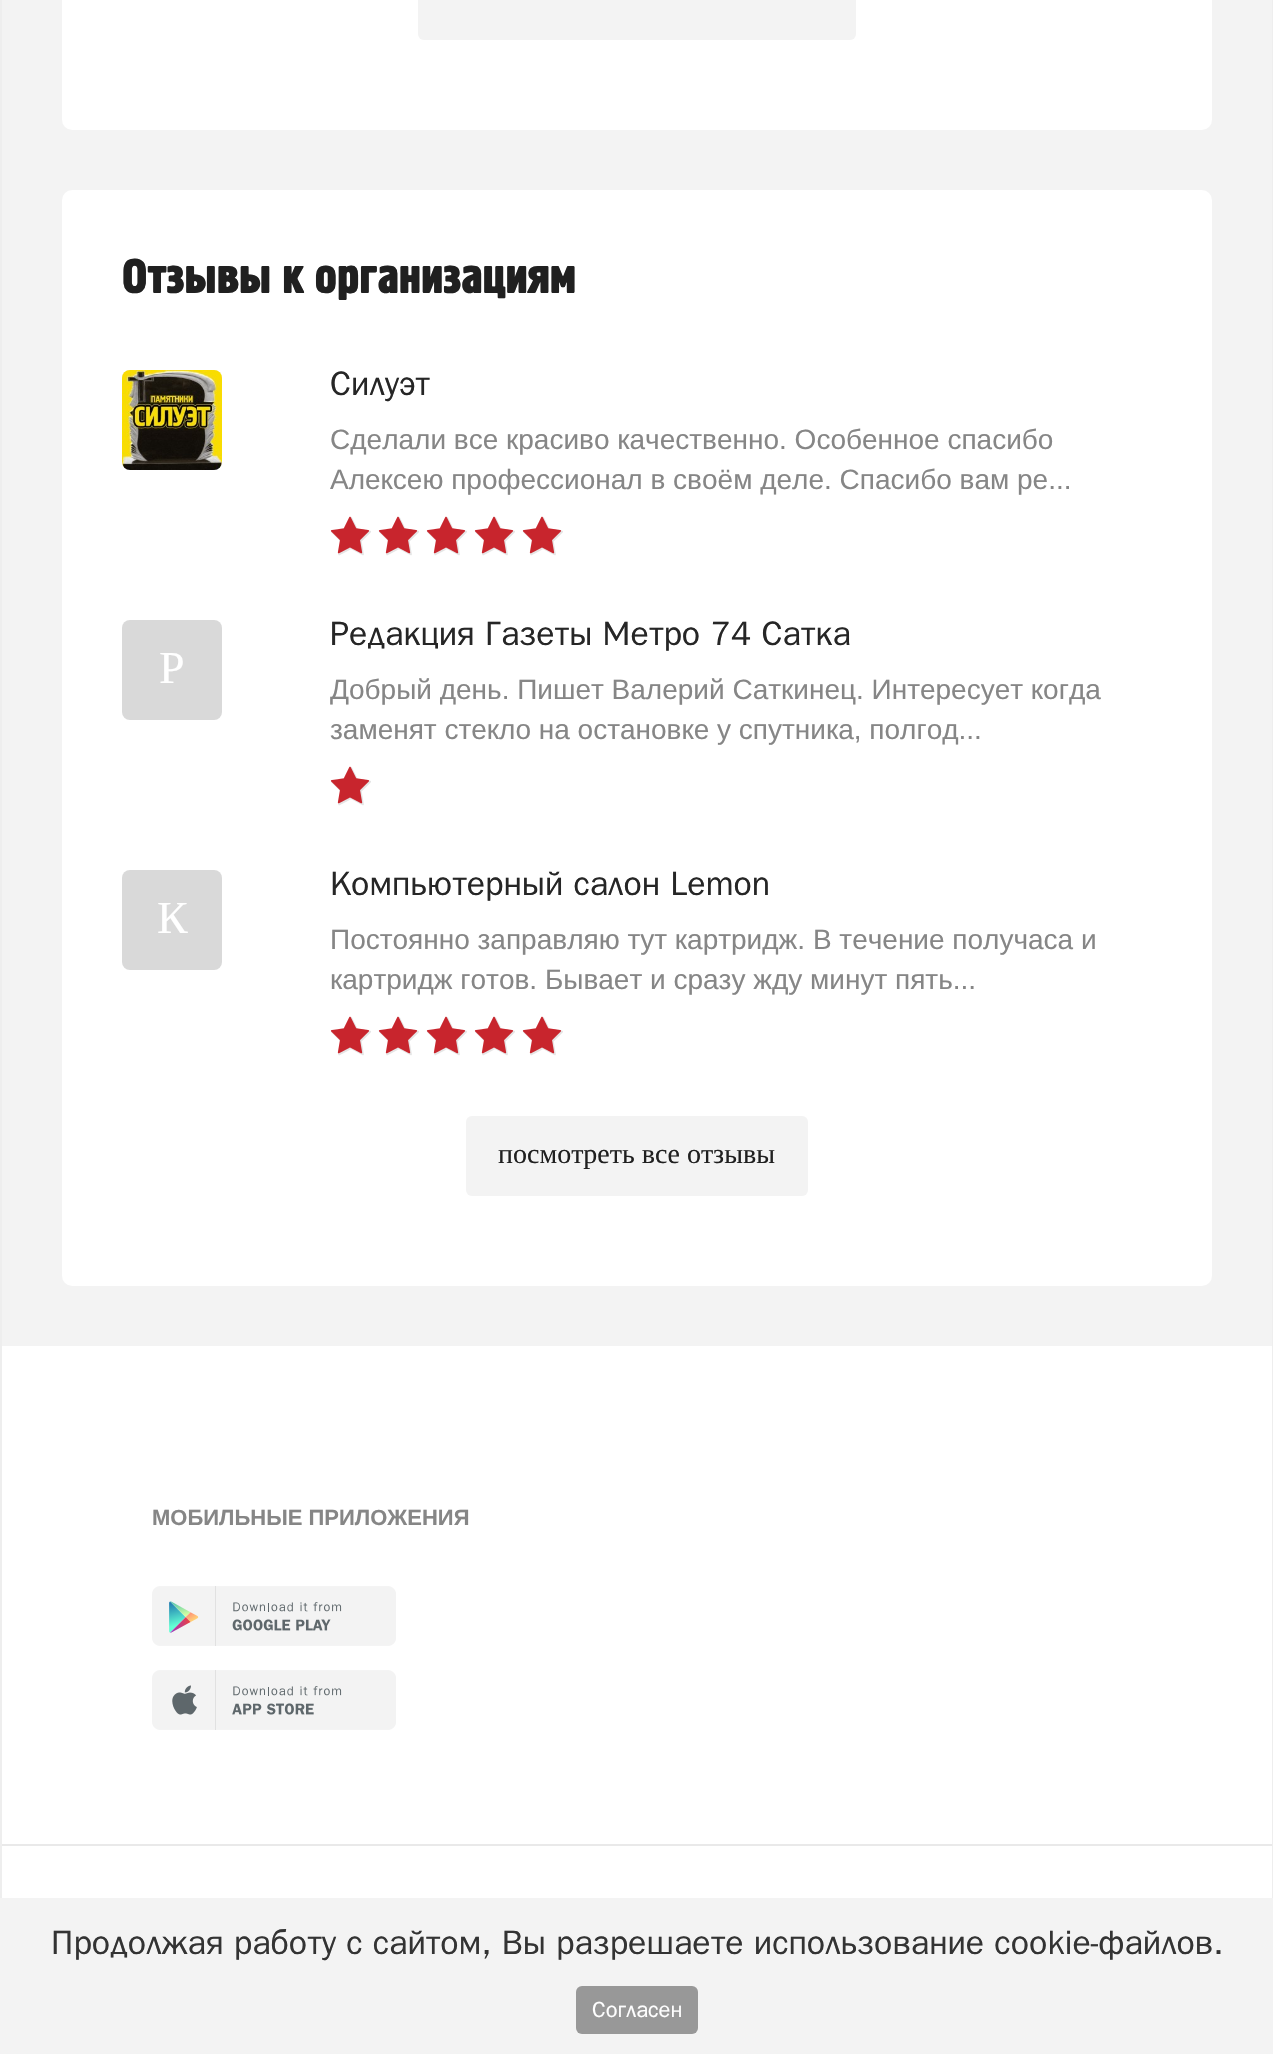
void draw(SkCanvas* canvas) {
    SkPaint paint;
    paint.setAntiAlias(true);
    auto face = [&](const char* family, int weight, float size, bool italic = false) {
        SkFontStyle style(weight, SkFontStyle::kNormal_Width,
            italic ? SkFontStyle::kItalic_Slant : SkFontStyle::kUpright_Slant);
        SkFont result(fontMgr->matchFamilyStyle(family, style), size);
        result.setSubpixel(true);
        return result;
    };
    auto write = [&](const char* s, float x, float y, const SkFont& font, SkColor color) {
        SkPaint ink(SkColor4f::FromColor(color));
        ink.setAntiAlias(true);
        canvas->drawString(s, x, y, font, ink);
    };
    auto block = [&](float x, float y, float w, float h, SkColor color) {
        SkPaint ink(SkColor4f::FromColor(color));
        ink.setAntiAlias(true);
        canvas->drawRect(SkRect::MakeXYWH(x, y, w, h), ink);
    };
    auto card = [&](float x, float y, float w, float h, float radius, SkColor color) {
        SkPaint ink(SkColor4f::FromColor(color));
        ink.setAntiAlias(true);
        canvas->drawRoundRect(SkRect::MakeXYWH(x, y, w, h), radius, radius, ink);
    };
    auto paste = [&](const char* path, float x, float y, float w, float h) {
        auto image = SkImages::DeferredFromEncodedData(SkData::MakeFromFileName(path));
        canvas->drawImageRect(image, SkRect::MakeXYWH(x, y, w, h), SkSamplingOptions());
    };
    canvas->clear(SkColorSetRGB(243, 243, 243));
    block(1272, 0, 1, 1898, SkColorSetRGB(238, 238, 238));
    block(0, 0, 2, 1898, SkColorSetRGB(238, 238, 238));
    card(62, -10, 1150, 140, 10, SK_ColorWHITE);
    card(418, -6, 438, 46, 6, SkColorSetRGB(243, 243, 243));
    card(62, 190, 1150, 1096, 10, SK_ColorWHITE);
    auto kFont1 = face("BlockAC", 400, 47.5f);
    write("Отзывы к организациям", 122, 293, kFont1, SkColorSetRGB(32, 32, 32));
    card(122, 370, 100, 100, 8, SkColorSetRGB(238, 238, 238));
    paste("pic1.png", 122, 370, 100, 100);
    auto kFont2 = face("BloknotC", 400, 34);
    write("Силуэт", 330, 395, kFont2, SkColorSetRGB(38, 38, 38));
    auto kFont3 = face("Liberation Sans", 400, 28);
    write("Сделали все красиво качественно. Особенное спасибо", 330, 449, kFont3, SkColorSetRGB(134, 134, 134));
    write("Алексею профессионал в своём деле. Спасибо вам ре...", 330, 489, kFont3, SkColorSetRGB(134, 134, 134));
    paste("pic2.png", 331, 517, 40, 39);
    paste("pic3.png", 330, 516, 40, 38);
    paste("pic2.png", 379, 517, 40, 39);
    paste("pic3.png", 378, 516, 40, 38);
    paste("pic2.png", 427, 517, 40, 39);
    paste("pic3.png", 426, 516, 40, 38);
    paste("pic2.png", 475, 517, 40, 39);
    paste("pic3.png", 474, 516, 40, 38);
    paste("pic2.png", 523, 517, 40, 39);
    paste("pic3.png", 522, 516, 40, 38);
    card(122, 620, 100, 100, 8, SkColorSetRGB(217, 217, 217));
    auto kFont4 = face("Liberation Serif", 400, 46);
    write("Р", 159, 683, kFont4, SK_ColorWHITE);
    write("Редакция Газеты Метро 74 Сатка", 330, 645, kFont2, SkColorSetRGB(38, 38, 38));
    write("Добрый день. Пишет Валерий Саткинец. Интересует когда", 330, 699, kFont3, SkColorSetRGB(134, 134, 134));
    write("заменят стекло на остановке у спутника, полгод...", 330, 739, kFont3, SkColorSetRGB(134, 134, 134));
    paste("pic2.png", 331, 767, 40, 39);
    paste("pic3.png", 330, 766, 40, 38);
    card(122, 870, 100, 100, 8, SkColorSetRGB(217, 217, 217));
    write("К", 157, 933, kFont4, SK_ColorWHITE);
    write("Компьютерный салон Lemon", 330, 895, kFont2, SkColorSetRGB(38, 38, 38));
    write("Постоянно заправляю тут картридж. В течение получаса и", 330, 949, kFont3, SkColorSetRGB(134, 134, 134));
    write("картридж готов. Бывает и сразу жду минут пять...", 330, 989, kFont3, SkColorSetRGB(134, 134, 134));
    paste("pic2.png", 331, 1017, 40, 39);
    paste("pic3.png", 330, 1016, 40, 38);
    paste("pic2.png", 379, 1017, 40, 39);
    paste("pic3.png", 378, 1016, 40, 38);
    paste("pic2.png", 427, 1017, 40, 39);
    paste("pic3.png", 426, 1016, 40, 38);
    paste("pic2.png", 475, 1017, 40, 39);
    paste("pic3.png", 474, 1016, 40, 38);
    paste("pic2.png", 523, 1017, 40, 39);
    paste("pic3.png", 522, 1016, 40, 38);
    card(466, 1116, 342, 80, 6, SkColorSetRGB(243, 243, 243));
    auto kFont5 = face("Liberation Serif", 400, 28);
    write("посмотреть все отзывы", 498, 1163, kFont5, SkColorSetRGB(32, 32, 32));
    block(2, 1346, 1270, 552, SK_ColorWHITE);
    auto kFont6 = face("Liberation Sans", 700, 22);
    write("МОБИЛЬНЫЕ ПРИЛОЖЕНИЯ", 152, 1525, kFont6, SkColorSetRGB(134, 134, 134));
    paste("pic4.png", 152, 1586, 244, 60);
    paste("pic5.png", 152, 1670, 244, 60);
    block(2, 1844, 1270, 2, SkColorSetRGB(233, 233, 233));
    write("Продолжая работу с сайтом, Вы разрешаете использование cookie-файлов.", 51, 1954, kFont2, SkColorSetRGB(51, 51, 51));
    card(576, 1986, 122, 48, 6, SkColorSetRGB(152, 152, 152));
    auto kFont7 = face("BloknotC", 400, 22);
    write("Согласен", 592, 2017, kFont7, SK_ColorWHITE);
}
